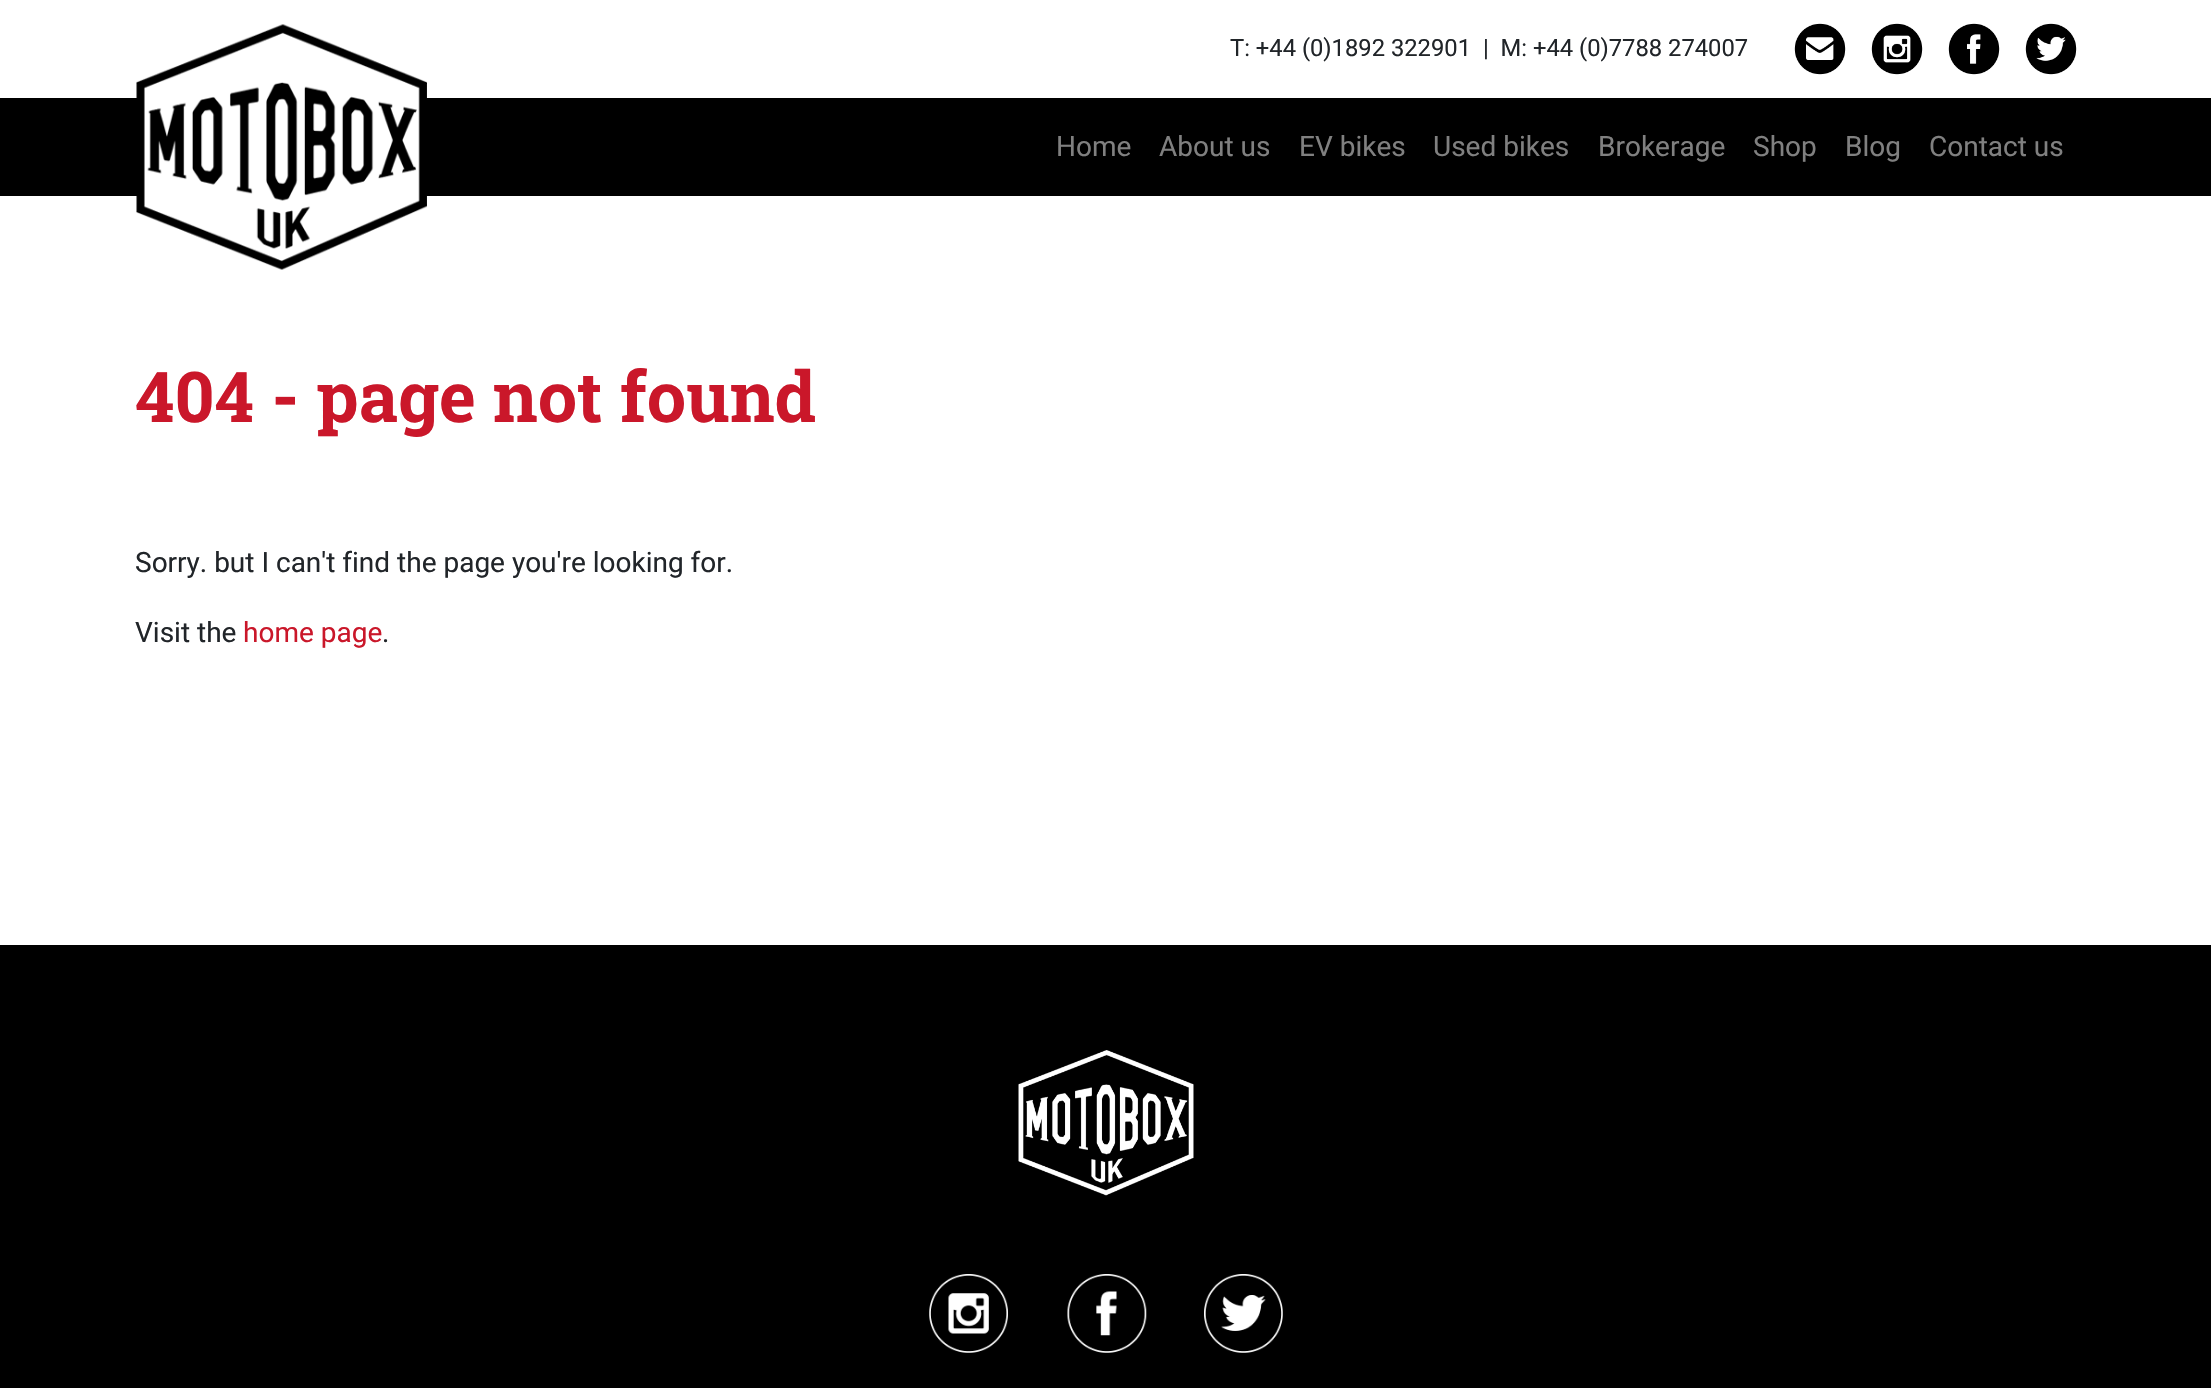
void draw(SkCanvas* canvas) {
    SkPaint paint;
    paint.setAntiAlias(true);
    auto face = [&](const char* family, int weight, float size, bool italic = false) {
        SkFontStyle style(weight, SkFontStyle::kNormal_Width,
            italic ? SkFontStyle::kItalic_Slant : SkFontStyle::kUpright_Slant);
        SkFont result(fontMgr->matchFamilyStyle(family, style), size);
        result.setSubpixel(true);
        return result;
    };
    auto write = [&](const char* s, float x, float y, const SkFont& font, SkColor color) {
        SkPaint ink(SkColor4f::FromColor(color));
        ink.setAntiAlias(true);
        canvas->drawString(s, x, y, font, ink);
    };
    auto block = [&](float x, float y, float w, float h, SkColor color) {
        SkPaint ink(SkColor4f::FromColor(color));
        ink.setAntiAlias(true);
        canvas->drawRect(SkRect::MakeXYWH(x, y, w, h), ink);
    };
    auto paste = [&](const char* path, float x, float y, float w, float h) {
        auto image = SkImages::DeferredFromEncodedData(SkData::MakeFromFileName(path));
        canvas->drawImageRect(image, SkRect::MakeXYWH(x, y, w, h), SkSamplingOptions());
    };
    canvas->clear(SK_ColorWHITE);
    auto kFont1 = face("Roboto", 400, 23.75f);
    write("T: +44 (0)1892 322901", 1230, 56, kFont1, SkColorSetRGB(33, 37, 41));
    write("|  M: +44 (0)7788 274007", 1483, 56, kFont1, SkColorSetRGB(33, 37, 41));
    paste("pic1.png", 1794, 23, 52, 52);
    paste("pic2.png", 1871, 23, 52, 52);
    paste("pic3.png", 1948, 23, 52, 52);
    paste("pic4.png", 2025, 23, 52, 52);
    block(0, 98, 2211, 98, SK_ColorBLACK);
    paste("pic5.png", 136, 24, 291, 246);
    auto kFont2 = face("Roboto", 400, 28);
    write("Home", 1056, 156, kFont2, SkColorSetRGB(128, 128, 128));
    write("About us", 1159, 156, kFont2, SkColorSetRGB(128, 128, 128));
    write("EV bikes", 1299, 156, kFont2, SkColorSetRGB(128, 128, 128));
    write("Used bikes", 1433, 156, kFont2, SkColorSetRGB(128, 128, 128));
    write("Brokerage", 1598, 156, kFont2, SkColorSetRGB(128, 128, 128));
    write("Shop", 1753, 156, kFont2, SkColorSetRGB(128, 128, 128));
    write("Blog", 1845, 156, kFont2, SkColorSetRGB(128, 128, 128));
    write("Contact us", 1929, 156, kFont2, SkColorSetRGB(128, 128, 128));
    auto kFont3 = face("Roboto Slab", 700, 70);
    write("404 - page not found", 135, 422, kFont3, SkColorSetRGB(202, 23, 42));
    write("Sorry. but I can't find the page you're looking for.", 135, 572, kFont2, SkColorSetRGB(33, 37, 41));
    write("Visit the", 135, 642, kFont2, SkColorSetRGB(33, 37, 41));
    write("home page", 243, 642, kFont2, SkColorSetRGB(202, 23, 42));
    write(".", 382, 642, kFont2, SkColorSetRGB(33, 37, 41));
    block(0, 945, 2211, 443, SK_ColorBLACK);
    paste("pic6.png", 1018, 1050, 176, 146);
    paste("pic7.png", 929, 1274, 79, 79);
    paste("pic8.png", 1067, 1274, 80, 79);
    paste("pic9.png", 1204, 1274, 79, 79);
}
